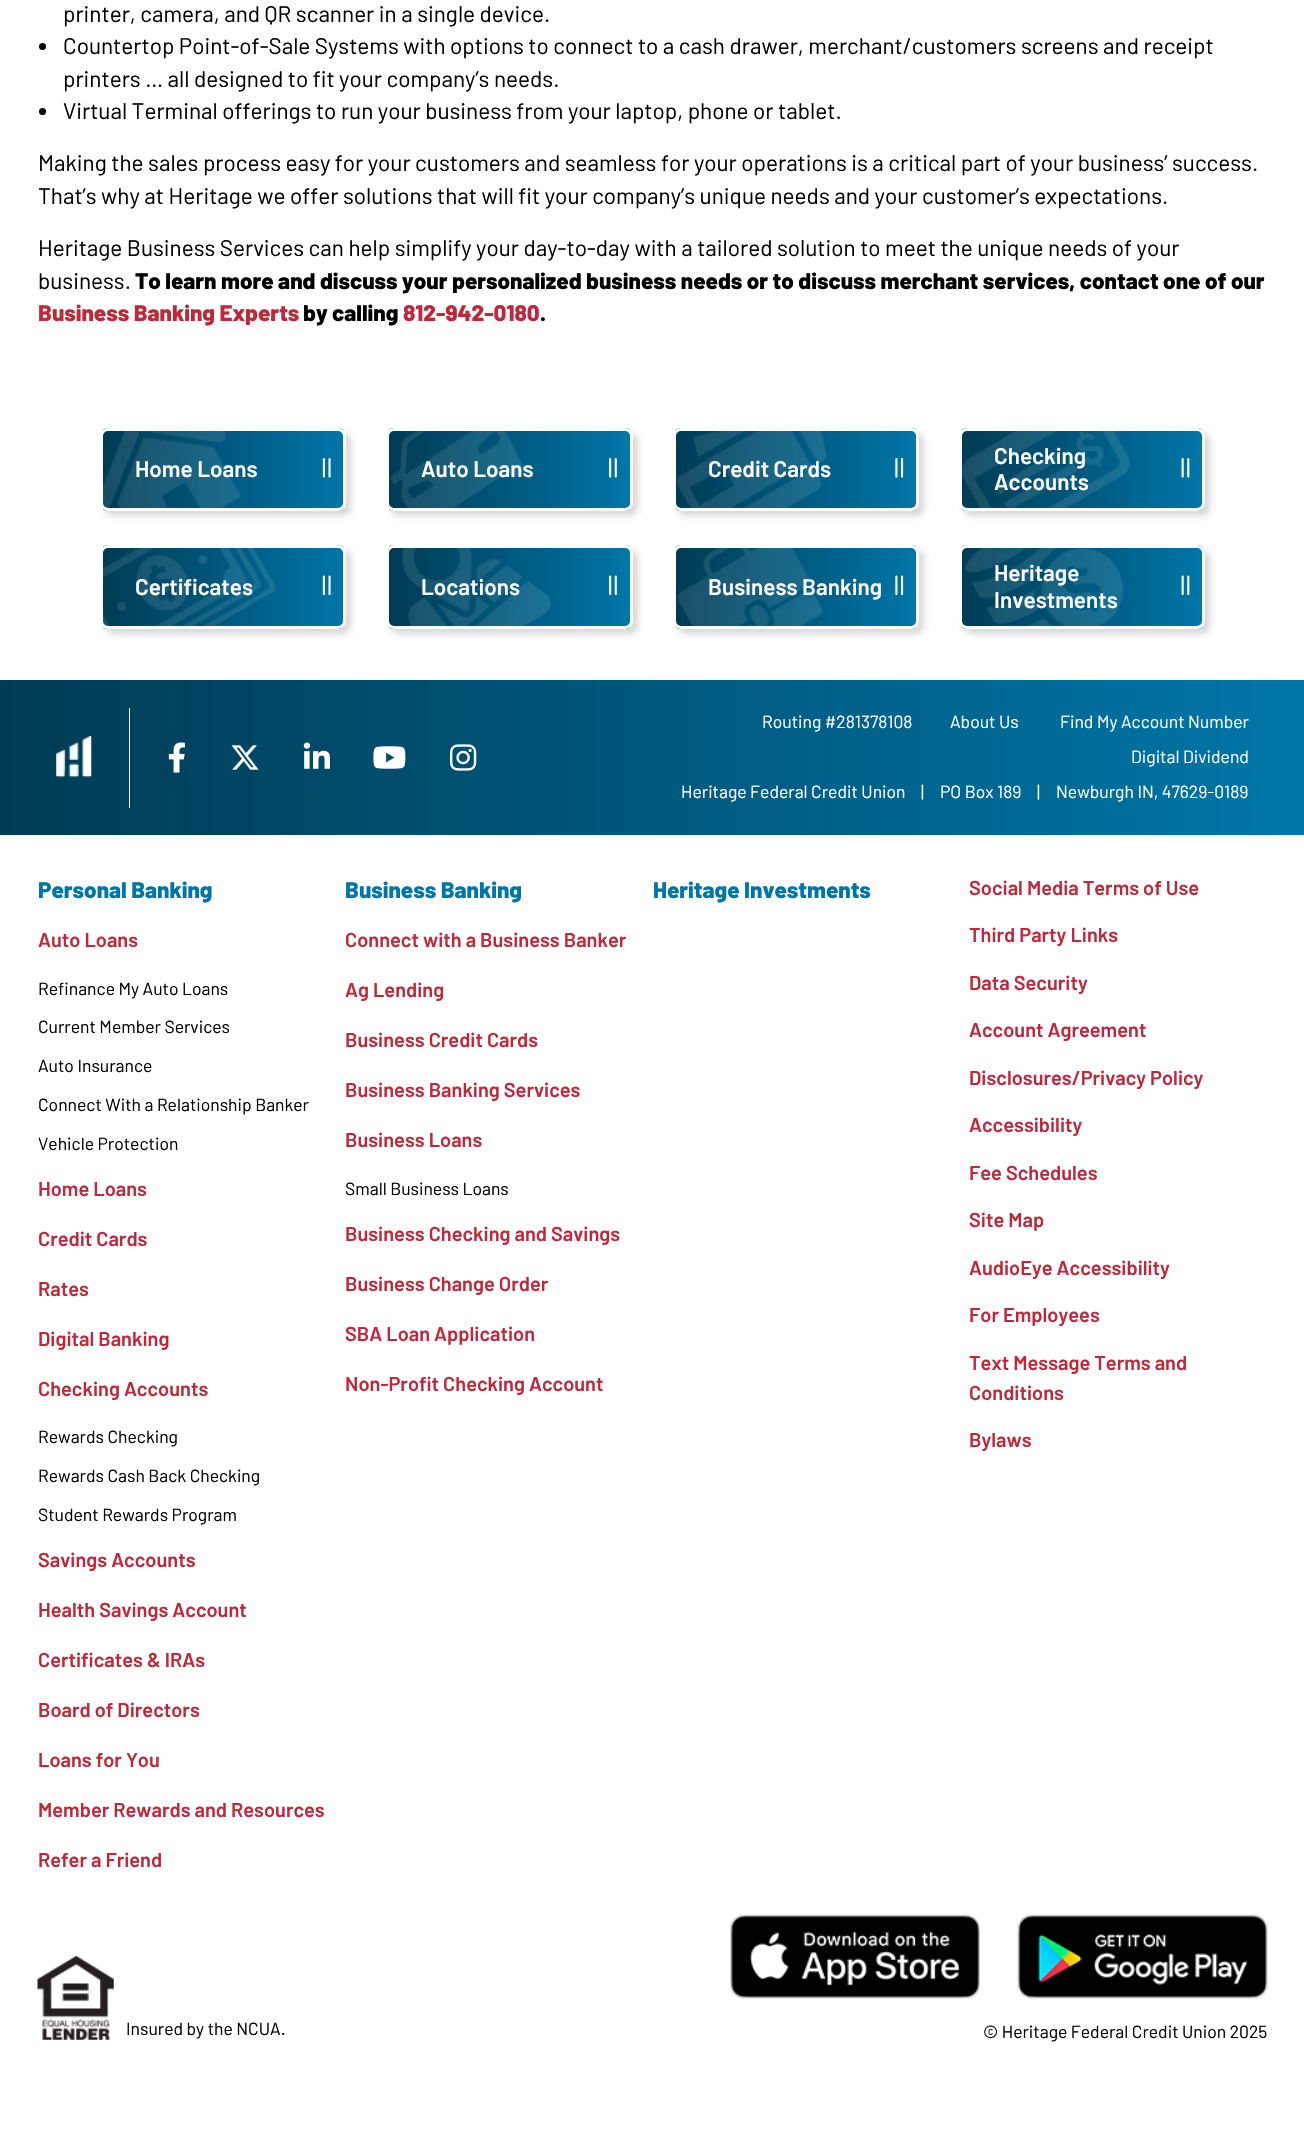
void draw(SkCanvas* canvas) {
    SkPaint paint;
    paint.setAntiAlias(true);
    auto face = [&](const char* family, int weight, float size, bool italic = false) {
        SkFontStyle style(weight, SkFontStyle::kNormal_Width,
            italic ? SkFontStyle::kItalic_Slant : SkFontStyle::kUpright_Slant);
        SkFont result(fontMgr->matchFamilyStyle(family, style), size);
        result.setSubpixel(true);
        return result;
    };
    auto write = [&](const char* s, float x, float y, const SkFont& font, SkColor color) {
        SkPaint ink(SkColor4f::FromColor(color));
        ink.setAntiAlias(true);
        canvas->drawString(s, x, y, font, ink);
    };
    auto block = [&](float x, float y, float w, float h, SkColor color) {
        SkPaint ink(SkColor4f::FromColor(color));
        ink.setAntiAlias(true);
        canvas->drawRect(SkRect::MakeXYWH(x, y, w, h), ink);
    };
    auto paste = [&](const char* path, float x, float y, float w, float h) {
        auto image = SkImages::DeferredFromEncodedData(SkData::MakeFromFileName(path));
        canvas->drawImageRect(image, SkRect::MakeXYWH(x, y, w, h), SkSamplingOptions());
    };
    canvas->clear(SK_ColorWHITE);
    auto kFont1 = face("Barlow", 400, 22.5f);
    write("printer, camera, and QR scanner in a single device.", 63, 22, kFont1, SK_ColorBLACK);
    paint.setColor(SK_ColorBLACK);
    canvas->drawCircle(42.5f, 46.5f, 3.5f, paint);
    write("Countertop Point-of-Sale Systems with options to connect to a cash drawer, merchant/customers screens and receipt", 63, 54, kFont1, SK_ColorBLACK);
    write("printers … all designed to fit your company’s needs.", 63, 87, kFont1, SK_ColorBLACK);
    canvas->drawCircle(42.5f, 111.5f, 3.5f, paint);
    write("Virtual Terminal offerings to run your business from your laptop, phone or tablet.", 63, 119, kFont1, SK_ColorBLACK);
    write("Making the sales process easy for your customers and seamless for your operations is a critical part of your business’ success.", 38, 171, kFont1, SK_ColorBLACK);
    write("That’s why at Heritage we offer solutions that will fit your company’s unique needs and your customer’s expectations.", 38, 204, kFont1, SK_ColorBLACK);
    write("Heritage Business Services can help simplify your day-to-day with a tailored solution to meet the unique needs of your", 38, 256, kFont1, SK_ColorBLACK);
    write("business.", 38, 289, kFont1, SK_ColorBLACK);
    auto kFont2 = face("Barlow", 800, 22.5f);
    write("To learn more and discuss your personalized business needs or to discuss merchant services, contact one of our", 135, 289, kFont2, SK_ColorBLACK);
    write("Business Banking Experts", 38, 321, kFont2, SkColorSetRGB(191, 40, 58));
    write("by calling", 303, 321, kFont2, SK_ColorBLACK);
    write("812-942-0180", 403, 321, kFont2, SkColorSetRGB(191, 40, 58));
    write(".", 540, 321, kFont2, SK_ColorBLACK);
    paint.setColor(SkColorSetARGB(38, 0, 0, 0));
    paint.setMaskFilter(SkMaskFilter::MakeBlur(kNormal_SkBlurStyle, 3));
    canvas->drawRoundRect(SkRect::MakeXYWH(105, 433, 246, 83), 8, 8, paint);
    paint.setMaskFilter(nullptr);
    canvas->save();
    canvas->clipPath(SkPathBuilder().moveTo(108, 428).lineTo(338, 428).cubicTo(342.5f, 428, 346, 431.5f, 346, 436).lineTo(346, 503).cubicTo(346, 507.5f, 342.5f, 511, 338, 511).lineTo(108, 511).cubicTo(103.5f, 511, 100, 507.5f, 100, 503).lineTo(100, 436).cubicTo(100, 431.5f, 103.5f, 428, 108, 428).close().detach(), true);
    {
        const SkColor colors[] = {SkColorSetRGB(0, 59, 84), SkColorSetRGB(0, 118, 168)};
        const float stops[] = {0, 1};
        const SkPoint ends[] = {{103, 469}, {344, 469}};
        paint.setShader(SkGradientShader::MakeLinear(ends, colors, stops, 2, SkTileMode::kClamp));
        paint.setAlpha(255);
    }
    canvas->drawRect(SkRect::MakeXYWH(103, 428, 241, 83), paint);
    canvas->restore();
    paint.setStyle(SkPaint::kStroke_Style);
    paint.setStrokeWidth(3);
    paint.setShader(nullptr);
    paint.setColor(SK_ColorWHITE);
    canvas->drawRoundRect(SkRect::MakeXYWH(101.5f, 429.5f, 243, 80), 6.5f, 6.5f, paint);
    paste("pic1.png", 103, 431, 138, 80);
    paste("pic2.png", 322, 458, 9, 20);
    auto kFont3 = face("Barlow", 600, 22.5f);
    write("Home Loans", 135, 477, kFont3, SK_ColorWHITE);
    paint.setStyle(SkPaint::kFill_Style);
    paint.setColor(SkColorSetARGB(38, 0, 0, 0));
    paint.setMaskFilter(SkMaskFilter::MakeBlur(kNormal_SkBlurStyle, 3));
    canvas->drawRoundRect(SkRect::MakeXYWH(391, 433, 247, 83), 8, 8, paint);
    paint.setMaskFilter(nullptr);
    canvas->save();
    canvas->clipPath(SkPathBuilder().moveTo(394, 428).lineTo(625, 428).cubicTo(629.5f, 428, 633, 431.5f, 633, 436).lineTo(633, 503).cubicTo(633, 507.5f, 629.5f, 511, 625, 511).lineTo(394, 511).cubicTo(389.5f, 511, 386, 507.5f, 386, 503).lineTo(386, 436).cubicTo(386, 431.5f, 389.5f, 428, 394, 428).close().detach(), true);
    {
        const SkColor colors[] = {SkColorSetRGB(0, 59, 84), SkColorSetRGB(0, 118, 168)};
        const float stops[] = {0, 1};
        const SkPoint ends[] = {{389, 469}, {630, 469}};
        paint.setShader(SkGradientShader::MakeLinear(ends, colors, stops, 2, SkTileMode::kClamp));
        paint.setAlpha(255);
    }
    canvas->drawRect(SkRect::MakeXYWH(389, 428, 241, 83), paint);
    canvas->restore();
    paint.setStyle(SkPaint::kStroke_Style);
    paint.setShader(nullptr);
    paint.setColor(SK_ColorWHITE);
    canvas->drawRoundRect(SkRect::MakeXYWH(387.5f, 429.5f, 244, 80), 6.5f, 6.5f, paint);
    paste("pic3.png", 390, 431, 135, 80);
    paste("pic4.png", 609, 458, 8, 20);
    write("Auto Loans", 421, 477, kFont3, SK_ColorWHITE);
    paint.setStyle(SkPaint::kFill_Style);
    paint.setColor(SkColorSetARGB(38, 0, 0, 0));
    paint.setMaskFilter(SkMaskFilter::MakeBlur(kNormal_SkBlurStyle, 3));
    canvas->drawRoundRect(SkRect::MakeXYWH(678, 433, 246, 83), 8, 8, paint);
    paint.setMaskFilter(nullptr);
    canvas->save();
    canvas->clipPath(SkPathBuilder().moveTo(681, 428).lineTo(911, 428).cubicTo(915.5f, 428, 919, 431.5f, 919, 436).lineTo(919, 503).cubicTo(919, 507.5f, 915.5f, 511, 911, 511).lineTo(681, 511).cubicTo(676.5f, 511, 673, 507.5f, 673, 503).lineTo(673, 436).cubicTo(673, 431.5f, 676.5f, 428, 681, 428).close().detach(), true);
    {
        const SkColor colors[] = {SkColorSetRGB(0, 59, 84), SkColorSetRGB(0, 118, 168)};
        const float stops[] = {0, 1};
        const SkPoint ends[] = {{675, 469}, {916, 469}};
        paint.setShader(SkGradientShader::MakeLinear(ends, colors, stops, 2, SkTileMode::kClamp));
        paint.setAlpha(255);
    }
    canvas->drawRect(SkRect::MakeXYWH(675, 428, 241, 83), paint);
    canvas->restore();
    paint.setStyle(SkPaint::kStroke_Style);
    paint.setShader(nullptr);
    paint.setColor(SK_ColorWHITE);
    canvas->drawRoundRect(SkRect::MakeXYWH(674.5f, 429.5f, 243, 80), 6.5f, 6.5f, paint);
    paste("pic5.png", 676, 430, 151, 81);
    paste("pic6.png", 895, 458, 9, 20);
    write("Credit Cards", 708, 477, kFont3, SK_ColorWHITE);
    paint.setStyle(SkPaint::kFill_Style);
    paint.setColor(SkColorSetARGB(38, 0, 0, 0));
    paint.setMaskFilter(SkMaskFilter::MakeBlur(kNormal_SkBlurStyle, 3));
    canvas->drawRoundRect(SkRect::MakeXYWH(964, 433, 246, 83), 8, 8, paint);
    paint.setMaskFilter(nullptr);
    canvas->save();
    canvas->clipPath(SkPathBuilder().moveTo(967, 428).lineTo(1197, 428).cubicTo(1201.5f, 428, 1205, 431.5f, 1205, 436).lineTo(1205, 503).cubicTo(1205, 507.5f, 1201.5f, 511, 1197, 511).lineTo(967, 511).cubicTo(962.5f, 511, 959, 507.5f, 959, 503).lineTo(959, 436).cubicTo(959, 431.5f, 962.5f, 428, 967, 428).close().detach(), true);
    {
        const SkColor colors[] = {SkColorSetRGB(0, 59, 84), SkColorSetRGB(0, 118, 168)};
        const float stops[] = {0, 1};
        const SkPoint ends[] = {{961, 469}, {1203, 469}};
        paint.setShader(SkGradientShader::MakeLinear(ends, colors, stops, 2, SkTileMode::kClamp));
        paint.setAlpha(255);
    }
    canvas->drawRect(SkRect::MakeXYWH(961, 428, 242, 83), paint);
    canvas->restore();
    paint.setStyle(SkPaint::kStroke_Style);
    paint.setShader(nullptr);
    paint.setColor(SK_ColorWHITE);
    canvas->drawRoundRect(SkRect::MakeXYWH(960.5f, 429.5f, 243, 80), 6.5f, 6.5f, paint);
    paste("pic7.png", 961, 430, 169, 81);
    write("Checking", 994, 464, kFont3, SK_ColorWHITE);
    write("Accounts", 994, 490, kFont3, SK_ColorWHITE);
    paste("pic8.png", 1181, 458, 9, 20);
    paint.setStyle(SkPaint::kFill_Style);
    paint.setColor(SkColorSetARGB(38, 0, 0, 0));
    paint.setMaskFilter(SkMaskFilter::MakeBlur(kNormal_SkBlurStyle, 3));
    canvas->drawRoundRect(SkRect::MakeXYWH(105, 550, 246, 84), 8, 8, paint);
    paint.setMaskFilter(nullptr);
    canvas->save();
    canvas->clipPath(SkPathBuilder().moveTo(108, 545).lineTo(338, 545).cubicTo(342.5f, 545, 346, 548.5f, 346, 553).lineTo(346, 621).cubicTo(346, 625.5f, 342.5f, 629, 338, 629).lineTo(108, 629).cubicTo(103.5f, 629, 100, 625.5f, 100, 621).lineTo(100, 553).cubicTo(100, 548.5f, 103.5f, 545, 108, 545).close().detach(), true);
    {
        const SkColor colors[] = {SkColorSetRGB(0, 59, 84), SkColorSetRGB(0, 118, 168)};
        const float stops[] = {0, 1};
        const SkPoint ends[] = {{103, 587}, {344, 587}};
        paint.setShader(SkGradientShader::MakeLinear(ends, colors, stops, 2, SkTileMode::kClamp));
        paint.setAlpha(255);
    }
    canvas->drawRect(SkRect::MakeXYWH(103, 545, 241, 84), paint);
    canvas->restore();
    paint.setStyle(SkPaint::kStroke_Style);
    paint.setShader(nullptr);
    paint.setColor(SK_ColorWHITE);
    canvas->drawRoundRect(SkRect::MakeXYWH(101.5f, 546.5f, 243, 81), 6.5f, 6.5f, paint);
    paste("pic9.png", 103, 547, 173, 84);
    paste("pic10.png", 322, 575, 9, 21);
    write("Certificates", 135, 595, kFont3, SK_ColorWHITE);
    paint.setStyle(SkPaint::kFill_Style);
    paint.setColor(SkColorSetARGB(38, 0, 0, 0));
    paint.setMaskFilter(SkMaskFilter::MakeBlur(kNormal_SkBlurStyle, 3));
    canvas->drawRoundRect(SkRect::MakeXYWH(391, 550, 247, 84), 8, 8, paint);
    paint.setMaskFilter(nullptr);
    canvas->save();
    canvas->clipPath(SkPathBuilder().moveTo(394, 545).lineTo(625, 545).cubicTo(629.5f, 545, 633, 548.5f, 633, 553).lineTo(633, 621).cubicTo(633, 625.5f, 629.5f, 629, 625, 629).lineTo(394, 629).cubicTo(389.5f, 629, 386, 625.5f, 386, 621).lineTo(386, 553).cubicTo(386, 548.5f, 389.5f, 545, 394, 545).close().detach(), true);
    {
        const SkColor colors[] = {SkColorSetRGB(0, 59, 84), SkColorSetRGB(0, 118, 168)};
        const float stops[] = {0, 1};
        const SkPoint ends[] = {{389, 587}, {630, 587}};
        paint.setShader(SkGradientShader::MakeLinear(ends, colors, stops, 2, SkTileMode::kClamp));
        paint.setAlpha(255);
    }
    canvas->drawRect(SkRect::MakeXYWH(389, 545, 241, 84), paint);
    canvas->restore();
    paint.setStyle(SkPaint::kStroke_Style);
    paint.setShader(nullptr);
    paint.setColor(SK_ColorWHITE);
    canvas->drawRoundRect(SkRect::MakeXYWH(387.5f, 546.5f, 244, 81), 6.5f, 6.5f, paint);
    paste("pic11.png", 402, 548, 149, 81);
    paste("pic12.png", 609, 575, 8, 21);
    write("Locations", 421, 595, kFont3, SK_ColorWHITE);
    paint.setStyle(SkPaint::kFill_Style);
    paint.setColor(SkColorSetARGB(38, 0, 0, 0));
    paint.setMaskFilter(SkMaskFilter::MakeBlur(kNormal_SkBlurStyle, 3));
    canvas->drawRoundRect(SkRect::MakeXYWH(678, 550, 246, 84), 8, 8, paint);
    paint.setMaskFilter(nullptr);
    canvas->save();
    canvas->clipPath(SkPathBuilder().moveTo(681, 545).lineTo(911, 545).cubicTo(915.5f, 545, 919, 548.5f, 919, 553).lineTo(919, 621).cubicTo(919, 625.5f, 915.5f, 629, 911, 629).lineTo(681, 629).cubicTo(676.5f, 629, 673, 625.5f, 673, 621).lineTo(673, 553).cubicTo(673, 548.5f, 676.5f, 545, 681, 545).close().detach(), true);
    {
        const SkColor colors[] = {SkColorSetRGB(0, 59, 84), SkColorSetRGB(0, 118, 168)};
        const float stops[] = {0, 1};
        const SkPoint ends[] = {{675, 587}, {916, 587}};
        paint.setShader(SkGradientShader::MakeLinear(ends, colors, stops, 2, SkTileMode::kClamp));
        paint.setAlpha(255);
    }
    canvas->drawRect(SkRect::MakeXYWH(675, 545, 241, 84), paint);
    canvas->restore();
    paint.setStyle(SkPaint::kStroke_Style);
    paint.setShader(nullptr);
    paint.setColor(SK_ColorWHITE);
    canvas->drawRoundRect(SkRect::MakeXYWH(674.5f, 546.5f, 243, 81), 6.5f, 6.5f, paint);
    paste("pic13.png", 677, 548, 146, 78);
    paste("pic14.png", 895, 575, 9, 21);
    write("Business Banking", 708, 595, kFont3, SK_ColorWHITE);
    paint.setStyle(SkPaint::kFill_Style);
    paint.setColor(SkColorSetARGB(38, 0, 0, 0));
    paint.setMaskFilter(SkMaskFilter::MakeBlur(kNormal_SkBlurStyle, 3));
    canvas->drawRoundRect(SkRect::MakeXYWH(964, 550, 246, 84), 8, 8, paint);
    paint.setMaskFilter(nullptr);
    canvas->save();
    canvas->clipPath(SkPathBuilder().moveTo(967, 545).lineTo(1197, 545).cubicTo(1201.5f, 545, 1205, 548.5f, 1205, 553).lineTo(1205, 621).cubicTo(1205, 625.5f, 1201.5f, 629, 1197, 629).lineTo(967, 629).cubicTo(962.5f, 629, 959, 625.5f, 959, 621).lineTo(959, 553).cubicTo(959, 548.5f, 962.5f, 545, 967, 545).close().detach(), true);
    {
        const SkColor colors[] = {SkColorSetRGB(0, 59, 84), SkColorSetRGB(0, 118, 168)};
        const float stops[] = {0, 1};
        const SkPoint ends[] = {{961, 587}, {1203, 587}};
        paint.setShader(SkGradientShader::MakeLinear(ends, colors, stops, 2, SkTileMode::kClamp));
        paint.setAlpha(255);
    }
    canvas->drawRect(SkRect::MakeXYWH(961, 545, 242, 84), paint);
    canvas->restore();
    paint.setStyle(SkPaint::kStroke_Style);
    paint.setShader(nullptr);
    paint.setColor(SK_ColorWHITE);
    canvas->drawRoundRect(SkRect::MakeXYWH(960.5f, 546.5f, 243, 81), 6.5f, 6.5f, paint);
    paste("pic15.png", 965, 548, 159, 78);
    write("Heritage", 994, 581, kFont3, SK_ColorWHITE);
    write("Investments", 994, 608, kFont3, SK_ColorWHITE);
    paste("pic16.png", 1181, 575, 9, 21);
    paint.setStyle(SkPaint::kFill_Style);
    {
        const SkColor colors[] = {SkColorSetRGB(0, 59, 84), SkColorSetRGB(0, 118, 168)};
        const float stops[] = {0, 1};
        const SkPoint ends[] = {{0, 758}, {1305, 758}};
        paint.setShader(SkGradientShader::MakeLinear(ends, colors, stops, 2, SkTileMode::kClamp));
        paint.setAlpha(255);
    }
    canvas->drawRect(SkRect::MakeXYWH(0, 680, 1304, 155), paint);
    block(129, 708, 1, 100, SK_ColorWHITE);
    paste("pic17.png", 56, 736, 36, 42);
    paste("pic18.png", 168, 742, 17, 31);
    paste("pic19.png", 231, 745, 28, 25);
    paste("pic20.png", 303, 742, 27, 27);
    paste("pic21.png", 373, 746, 33, 23);
    paste("pic22.png", 450, 744, 27, 27);
    auto kFont4 = face("Barlow", 400, 17.5f);
    write("Routing #281378108", 762, 728, kFont4, SK_ColorWHITE);
    write("About Us", 950, 728, kFont4, SK_ColorWHITE);
    write("Find My Account Number", 1060, 728, kFont4, SK_ColorWHITE);
    write("Digital Dividend", 1131, 763, kFont4, SK_ColorWHITE);
    write("Heritage Federal Credit Union", 681, 798, kFont4, SK_ColorWHITE);
    write("|", 921, 798, kFont4, SK_ColorWHITE);
    write("PO Box 189", 940, 798, kFont4, SK_ColorWHITE);
    write("|", 1037, 798, kFont4, SK_ColorWHITE);
    write("Newburgh IN, 47629-0189", 1056, 798, kFont4, SK_ColorWHITE);
    write("Personal Banking", 38, 898, kFont2, SkColorSetRGB(0, 117, 169));
    auto kFont5 = face("Barlow", 600, 20);
    write("Auto Loans", 38, 947, kFont5, SkColorSetRGB(191, 40, 58));
    write("Refinance My Auto Loans", 38, 995, kFont4, SK_ColorBLACK);
    write("Current Member Services", 38, 1033, kFont4, SK_ColorBLACK);
    write("Auto Insurance", 38, 1072, kFont4, SK_ColorBLACK);
    write("Connect With a Relationship Banker", 38, 1111, kFont4, SK_ColorBLACK);
    write("Vehicle Protection", 38, 1150, kFont4, SK_ColorBLACK);
    write("Home Loans", 38, 1196, kFont5, SkColorSetRGB(191, 40, 58));
    write("Credit Cards", 38, 1246, kFont5, SkColorSetRGB(191, 40, 58));
    write("Rates", 38, 1296, kFont5, SkColorSetRGB(191, 40, 58));
    write("Digital Banking", 38, 1346, kFont5, SkColorSetRGB(191, 40, 58));
    write("Checking Accounts", 38, 1396, kFont5, SkColorSetRGB(191, 40, 58));
    write("Rewards Checking", 38, 1443, kFont4, SK_ColorBLACK);
    write("Rewards Cash Back Checking", 38, 1482, kFont4, SK_ColorBLACK);
    write("Student Rewards Program", 38, 1521, kFont4, SK_ColorBLACK);
    write("Savings Accounts", 38, 1567, kFont5, SkColorSetRGB(191, 40, 58));
    write("Health Savings Account", 38, 1617, kFont5, SkColorSetRGB(191, 40, 58));
    write("Certificates & IRAs", 38, 1667, kFont5, SkColorSetRGB(191, 40, 58));
    write("Board of Directors", 38, 1717, kFont5, SkColorSetRGB(191, 40, 58));
    write("Loans for You", 38, 1767, kFont5, SkColorSetRGB(191, 40, 58));
    write("Member Rewards and Resources", 38, 1817, kFont5, SkColorSetRGB(191, 40, 58));
    write("Refer a Friend", 38, 1867, kFont5, SkColorSetRGB(191, 40, 58));
    write("Business Banking", 345, 898, kFont2, SkColorSetRGB(0, 117, 169));
    write("Connect with a Business Banker", 345, 947, kFont5, SkColorSetRGB(191, 40, 58));
    write("Ag Lending", 345, 997, kFont5, SkColorSetRGB(191, 40, 58));
    write("Business Credit Cards", 345, 1047, kFont5, SkColorSetRGB(191, 40, 58));
    write("Business Banking Services", 345, 1097, kFont5, SkColorSetRGB(191, 40, 58));
    write("Business Loans", 345, 1147, kFont5, SkColorSetRGB(191, 40, 58));
    write("Small Business Loans", 345, 1195, kFont4, SK_ColorBLACK);
    write("Business Checking and Savings", 345, 1241, kFont5, SkColorSetRGB(191, 40, 58));
    write("Business Change Order", 345, 1291, kFont5, SkColorSetRGB(191, 40, 58));
    write("SBA Loan Application", 345, 1341, kFont5, SkColorSetRGB(191, 40, 58));
    write("Non-Profit Checking Account", 345, 1391, kFont5, SkColorSetRGB(191, 40, 58));
    write("Heritage Investments", 653, 898, kFont2, SkColorSetRGB(0, 117, 169));
    write("Social Media Terms of Use", 969, 895, kFont5, SkColorSetRGB(191, 40, 58));
    write("Third Party Links", 969, 942, kFont5, SkColorSetRGB(191, 40, 58));
    write("Data Security", 969, 990, kFont5, SkColorSetRGB(191, 40, 58));
    write("Account Agreement", 969, 1037, kFont5, SkColorSetRGB(191, 40, 58));
    write("Disclosures/Privacy Policy", 969, 1085, kFont5, SkColorSetRGB(191, 40, 58));
    write("Accessibility", 969, 1132, kFont5, SkColorSetRGB(191, 40, 58));
    write("Fee Schedules", 969, 1180, kFont5, SkColorSetRGB(191, 40, 58));
    write("Site Map", 969, 1227, kFont5, SkColorSetRGB(191, 40, 58));
    write("AudioEye Accessibility", 969, 1275, kFont5, SkColorSetRGB(191, 40, 58));
    write("For Employees", 969, 1322, kFont5, SkColorSetRGB(191, 40, 58));
    write("Text Message Terms and", 969, 1370, kFont5, SkColorSetRGB(191, 40, 58));
    write("Conditions", 969, 1400, kFont5, SkColorSetRGB(191, 40, 58));
    write("Bylaws", 969, 1447, kFont5, SkColorSetRGB(191, 40, 58));
    paste("pic23.png", 730, 1914, 250, 85);
    paste("pic24.png", 1017, 1914, 251, 85);
    paste("pic25.png", 37, 1956, 77, 84);
    write("Insured by the NCUA.", 126, 2035, kFont4, SK_ColorBLACK);
    write("© Heritage Federal Credit Union 2025", 983, 2038, kFont4, SK_ColorBLACK);
}
